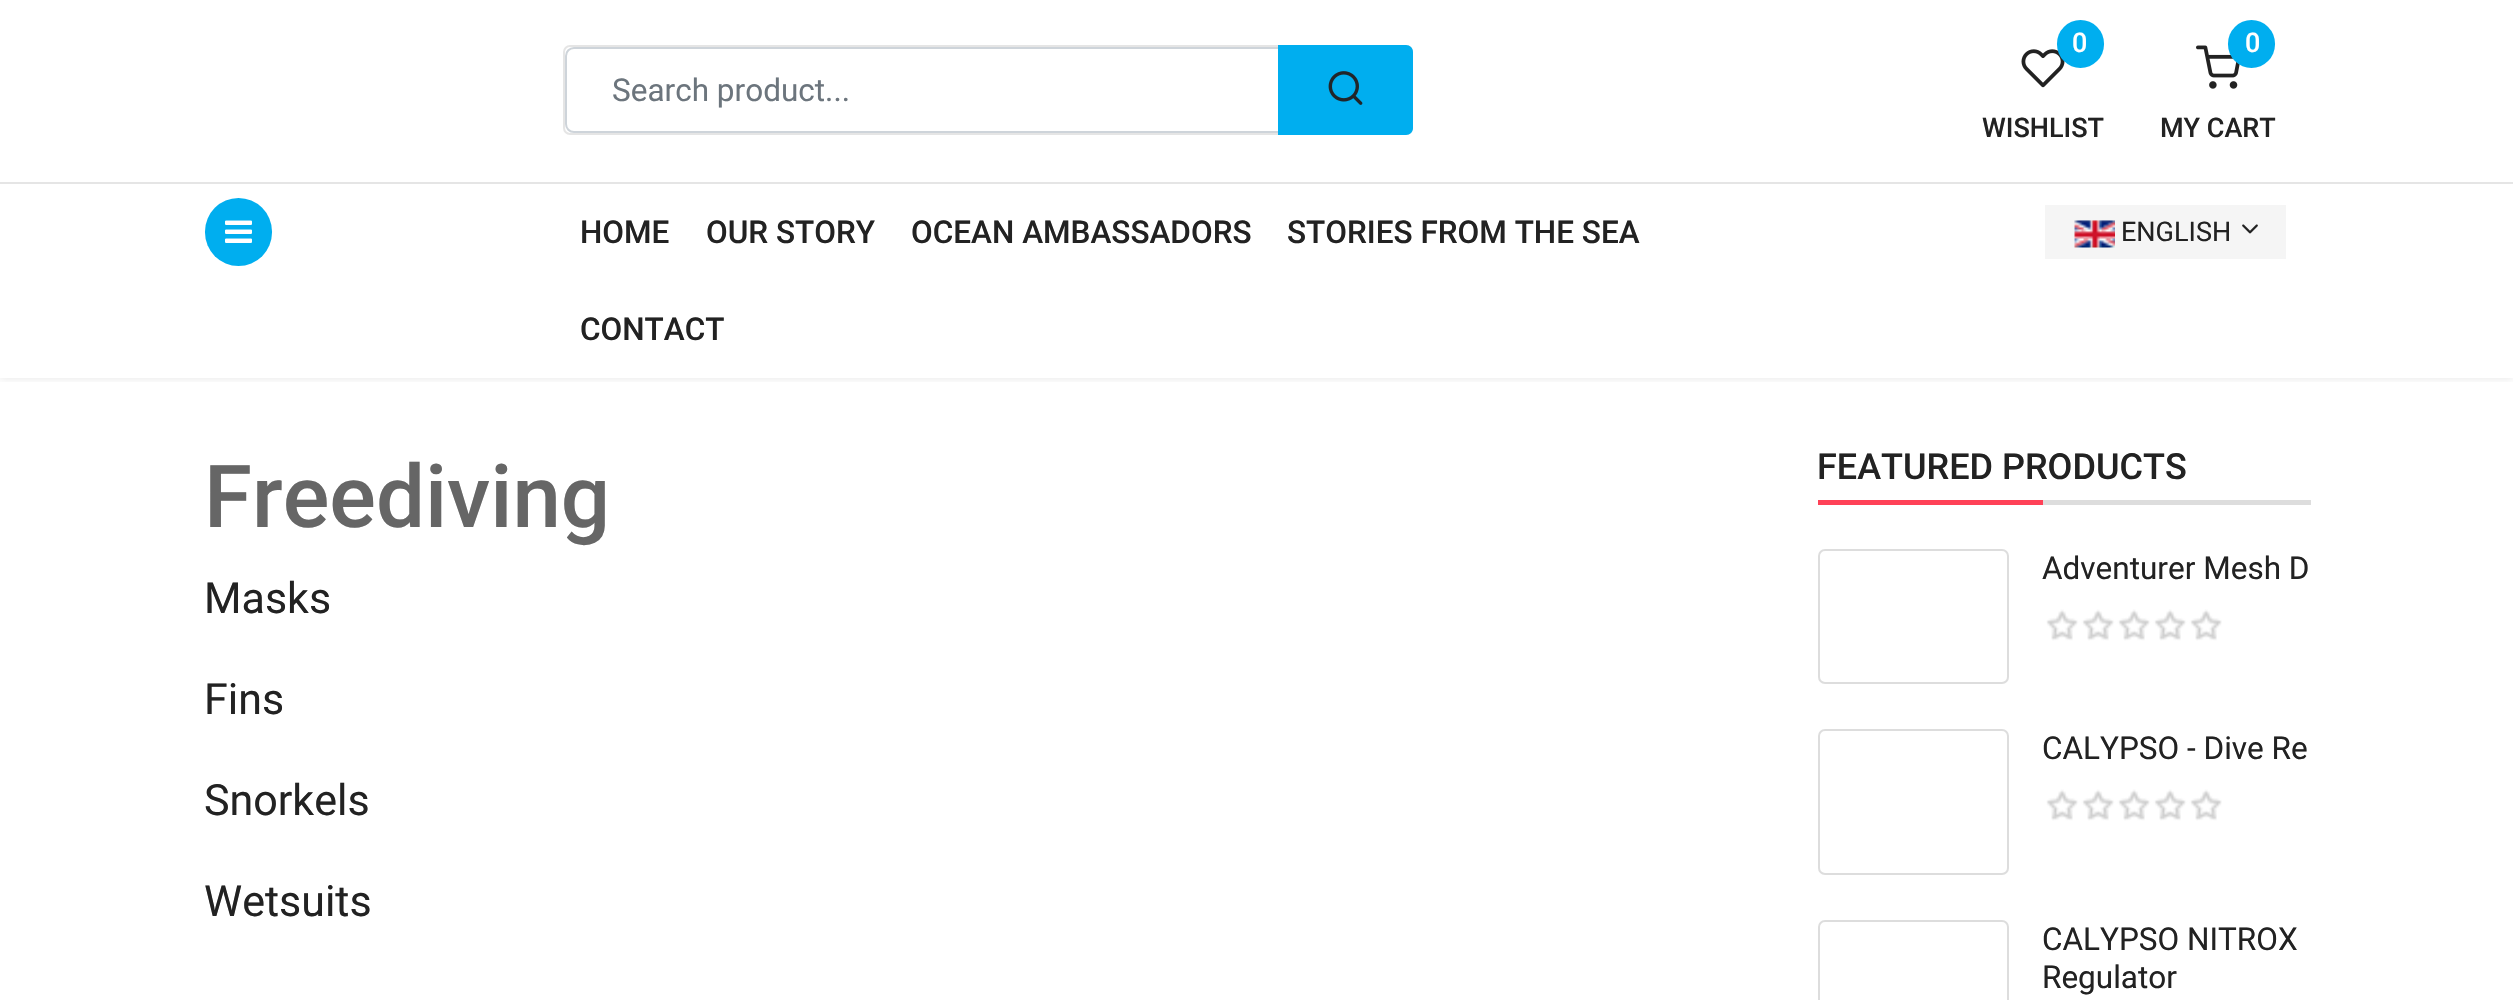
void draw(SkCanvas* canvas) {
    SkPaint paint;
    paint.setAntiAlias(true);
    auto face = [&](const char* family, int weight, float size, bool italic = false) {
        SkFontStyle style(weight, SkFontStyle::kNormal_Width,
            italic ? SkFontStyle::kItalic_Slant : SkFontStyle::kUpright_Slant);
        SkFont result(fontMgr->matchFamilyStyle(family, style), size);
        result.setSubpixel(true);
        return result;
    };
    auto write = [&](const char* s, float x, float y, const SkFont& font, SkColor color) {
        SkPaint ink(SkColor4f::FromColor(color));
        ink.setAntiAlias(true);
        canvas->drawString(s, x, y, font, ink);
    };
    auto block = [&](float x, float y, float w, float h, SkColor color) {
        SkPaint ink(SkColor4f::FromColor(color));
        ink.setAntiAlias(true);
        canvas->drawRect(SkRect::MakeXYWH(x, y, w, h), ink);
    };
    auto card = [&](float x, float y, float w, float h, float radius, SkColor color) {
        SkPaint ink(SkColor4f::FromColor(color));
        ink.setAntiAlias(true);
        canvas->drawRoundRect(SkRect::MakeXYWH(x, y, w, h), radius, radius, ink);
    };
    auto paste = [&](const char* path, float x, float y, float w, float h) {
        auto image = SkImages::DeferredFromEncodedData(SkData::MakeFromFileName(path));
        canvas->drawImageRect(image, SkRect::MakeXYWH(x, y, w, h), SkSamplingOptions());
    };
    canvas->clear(SK_ColorWHITE);
    canvas->save();
    canvas->clipRect(SkRect::MakeXYWH(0, 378, 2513, 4));
    paint.setColor(SkColorSetARGB(26, 0, 0, 0));
    paint.setMaskFilter(SkMaskFilter::MakeBlur(kNormal_SkBlurStyle, 4.5f));
    canvas->drawRect(SkRect::MakeXYWH(0, 0, 2513, 378), paint);
    paint.setMaskFilter(nullptr);
    canvas->restore();
    block(0, 182, 2513, 2, SkColorSetRGB(229, 229, 229));
    paint.setStyle(SkPaint::kStroke_Style);
    paint.setStrokeWidth(2);
    paint.setColor(SkColorSetRGB(229, 229, 229));
    canvas->drawRoundRect(SkRect::MakeXYWH(564, 46, 848, 88), 6, 6, paint);
    paint.setColor(SkColorSetRGB(206, 212, 218));
    canvas->drawPath(SkPathBuilder().moveTo(574, 48).lineTo(1282, 48).lineTo(1282, 132).lineTo(574, 132).cubicTo(569.5f, 132, 566, 128.5f, 566, 124).lineTo(566, 56).cubicTo(566, 51.5f, 569.5f, 48, 574, 48).close().detach(), paint);
    auto kFont1 = face("Roboto", 400, 31.5f);
    write("Search product...", 612, 101, kFont1, SkColorSetRGB(108, 117, 125));
    paint.setStyle(SkPaint::kFill_Style);
    paint.setColor(SkColorSetRGB(0, 174, 239));
    canvas->drawPath(SkPathBuilder().moveTo(1278, 45).lineTo(1406, 45).cubicTo(1410, 45, 1413, 48, 1413, 52).lineTo(1413, 128).cubicTo(1413, 132, 1410, 135, 1406, 135).lineTo(1278, 135).close().detach(), paint);
    paste("pic1.png", 1328, 71, 35, 34);
    paste("pic2.png", 2021, 49, 44, 39);
    card(2057, 20, 47, 48, 23.5f, SkColorSetRGB(0, 174, 239));
    auto kFont2 = face("Roboto", 500, 27);
    write("0", 2072, 52, kFont2, SK_ColorWHITE);
    write("WISHLIST", 1982, 137, kFont2, SkColorSetRGB(34, 34, 34));
    paste("pic3.png", 2196, 45, 44, 44);
    card(2228, 20, 47, 48, 23.5f, SkColorSetRGB(0, 174, 239));
    write("0", 2245, 52, kFont2, SK_ColorWHITE);
    write("MY CART", 2160, 137, kFont2, SkColorSetRGB(34, 34, 34));
    card(205, 198, 67, 68, 33.5f, SkColorSetRGB(0, 174, 239));
    paste("pic4.png", 225, 220, 27, 23);
    auto kFont3 = face("Roboto", 500, 31.5f);
    write("HOME", 580, 243, kFont3, SkColorSetRGB(34, 34, 34));
    write("OUR STORY", 706, 243, kFont3, SkColorSetRGB(34, 34, 34));
    write("OCEAN AMBASSADORS", 911, 243, kFont3, SkColorSetRGB(34, 34, 34));
    write("STORIES FROM THE SEA", 1287, 243, kFont3, SkColorSetRGB(34, 34, 34));
    write("CONTACT", 580, 340, kFont3, SkColorSetRGB(34, 34, 34));
    block(2045, 205, 241, 54, SkColorSetRGB(245, 245, 245));
    paste("pic5.png", 2074, 220, 41, 28);
    auto kFont4 = face("Roboto", 400, 27);
    write("ENGLISH", 2121, 241, kFont4, SkColorSetRGB(34, 34, 34));
    paste("pic6.png", 2242, 224, 16, 10);
    auto kFont5 = face("Roboto", 500, 87);
    write("Freediving", 204, 527, kFont5, SkColorSetRGB(102, 102, 102));
    auto kFont6 = face("Roboto", 400, 43);
    write("Masks", 204, 613, kFont6, SkColorSetRGB(34, 34, 34));
    write("Fins", 204, 714, kFont6, SkColorSetRGB(34, 34, 34));
    write("Snorkels", 204, 815, kFont6, SkColorSetRGB(34, 34, 34));
    write("Wetsuits", 204, 916, kFont6, SkColorSetRGB(34, 34, 34));
    block(2043, 500, 268, 5, SkColorSetRGB(221, 221, 221));
    auto kFont7 = face("Roboto", 500, 36);
    write("FEATURED PRODUCTS", 1817, 479, kFont7, SkColorSetRGB(34, 34, 34));
    block(1818, 500, 225, 5, SkColorSetRGB(255, 65, 87));
    paint.setStyle(SkPaint::kStroke_Style);
    paint.setColor(SkColorSetRGB(221, 221, 221));
    canvas->drawRoundRect(SkRect::MakeXYWH(1819, 550, 189, 133), 6, 6, paint);
    write("Adventurer Mesh D", 2042, 579, kFont1, SkColorSetRGB(34, 34, 34));
    paste("pic7.png", 2046, 609, 176, 32);
    canvas->drawRoundRect(SkRect::MakeXYWH(1819, 730, 189, 144), 6, 6, paint);
    write("CALYPSO - Dive Re", 2042, 759, kFont1, SkColorSetRGB(34, 34, 34));
    paste("pic8.png", 2046, 789, 176, 32);
    canvas->drawRoundRect(SkRect::MakeXYWH(1819, 921, 189, 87), 6, 6, paint);
    write("CALYPSO NITROX", 2042, 950, kFont1, SkColorSetRGB(34, 34, 34));
    write("Regulator", 2042, 988, kFont1, SkColorSetRGB(34, 34, 34));
}
